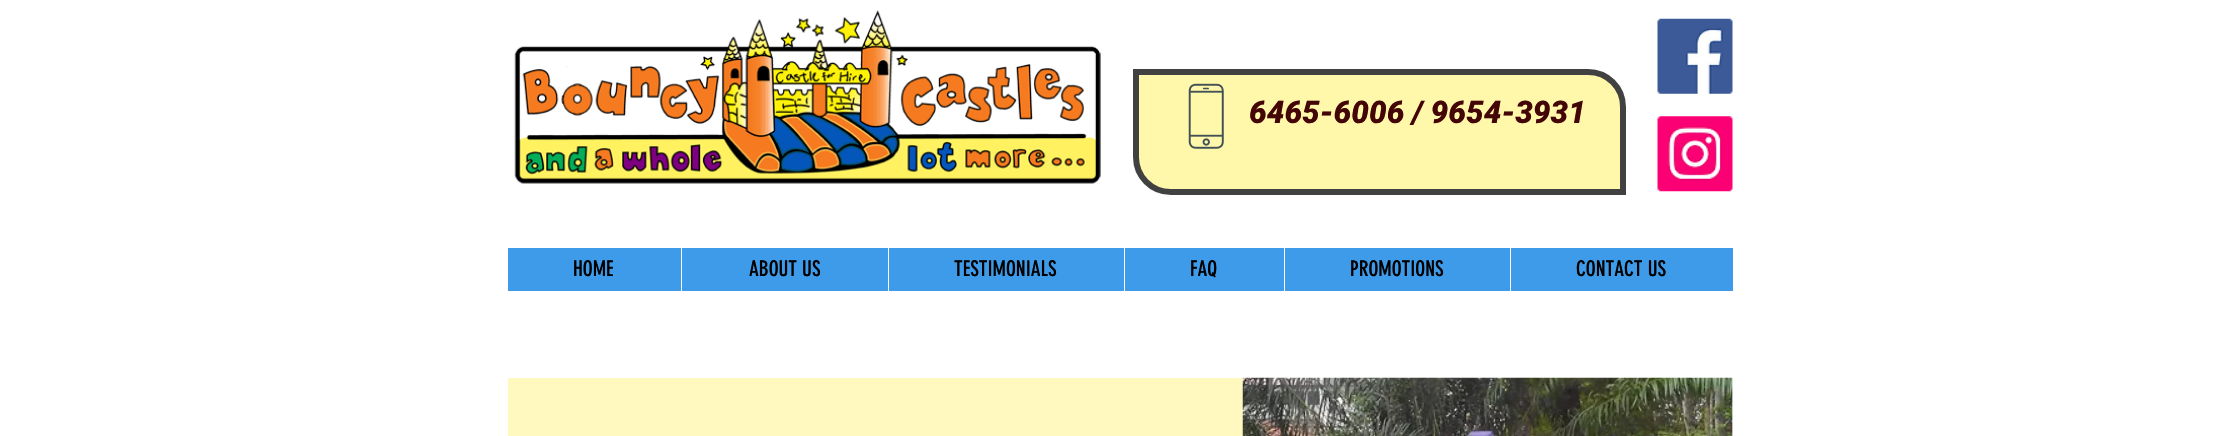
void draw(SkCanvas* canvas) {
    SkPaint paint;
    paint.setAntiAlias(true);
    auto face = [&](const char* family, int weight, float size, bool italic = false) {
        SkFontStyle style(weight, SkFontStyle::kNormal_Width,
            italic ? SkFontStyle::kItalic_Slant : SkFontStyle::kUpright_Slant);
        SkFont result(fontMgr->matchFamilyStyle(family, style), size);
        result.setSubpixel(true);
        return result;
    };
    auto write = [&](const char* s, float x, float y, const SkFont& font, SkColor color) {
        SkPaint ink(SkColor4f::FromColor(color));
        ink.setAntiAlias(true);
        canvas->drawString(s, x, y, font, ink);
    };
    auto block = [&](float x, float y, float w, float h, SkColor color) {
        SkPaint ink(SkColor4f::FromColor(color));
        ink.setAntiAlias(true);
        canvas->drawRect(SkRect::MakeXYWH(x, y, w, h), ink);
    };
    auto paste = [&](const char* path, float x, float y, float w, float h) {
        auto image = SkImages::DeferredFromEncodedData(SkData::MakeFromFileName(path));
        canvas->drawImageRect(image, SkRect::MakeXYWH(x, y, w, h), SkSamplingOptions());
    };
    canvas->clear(SK_ColorWHITE);
    paste("pic1.png", 514, 10, 587, 174);
    paste("pic2.png", 1657, 18, 76, 76);
    paint.setColor(SkColorSetRGB(255, 247, 170));
    canvas->drawPath(SkPathBuilder().moveTo(1136, 72).lineTo(1588, 72).cubicTo(1607.5f, 72, 1623, 87.5f, 1623, 107).lineTo(1623, 192).lineTo(1171, 192).cubicTo(1151.5f, 192, 1136, 176.5f, 1136, 157).close().detach(), paint);
    paint.setStyle(SkPaint::kStroke_Style);
    paint.setStrokeWidth(6);
    paint.setColor(SkColorSetRGB(65, 65, 65));
    canvas->drawPath(SkPathBuilder().moveTo(1136, 72).lineTo(1588, 72).cubicTo(1607.5f, 72, 1623, 87.5f, 1623, 107).lineTo(1623, 192).lineTo(1171, 192).cubicTo(1151.5f, 192, 1136, 176.5f, 1136, 157).close().detach(), paint);
    paste("pic3.png", 1188, 83, 36, 66);
    auto kFont1 = face("Roboto", 900, 31.25f, true);
    write("6465-6006 / 9654-3931", 1249, 123, kFont1, SkColorSetRGB(68, 5, 6));
    paste("pic4.png", 1657, 116, 76, 76);
    block(508, 248, 1225, 43, SkColorSetRGB(61, 155, 233));
    auto kFont2 = face("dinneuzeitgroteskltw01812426", 400, 21.25f);
    write("HOME", 573, 276, kFont2, SK_ColorBLACK);
    block(681, 248, 1, 43, SK_ColorWHITE);
    write("ABOUT US", 749, 276, kFont2, SK_ColorBLACK);
    block(888, 248, 1, 43, SK_ColorWHITE);
    write("TESTIMONIALS", 954, 276, kFont2, SK_ColorBLACK);
    block(1124, 248, 1, 43, SK_ColorWHITE);
    write("FAQ", 1190, 276, kFont2, SK_ColorBLACK);
    block(1284, 248, 1, 43, SK_ColorWHITE);
    write("PROMOTIONS", 1350, 276, kFont2, SK_ColorBLACK);
    block(1510, 248, 1, 43, SK_ColorWHITE);
    write("CONTACT US", 1576, 276, kFont2, SK_ColorBLACK);
    block(508, 378, 735, 58, SkColorSetRGB(255, 249, 191));
    block(1732, 378, 1, 58, SkColorSetRGB(237, 237, 237));
    paste("pic5.png", 1242, 377, 491, 59);
}
